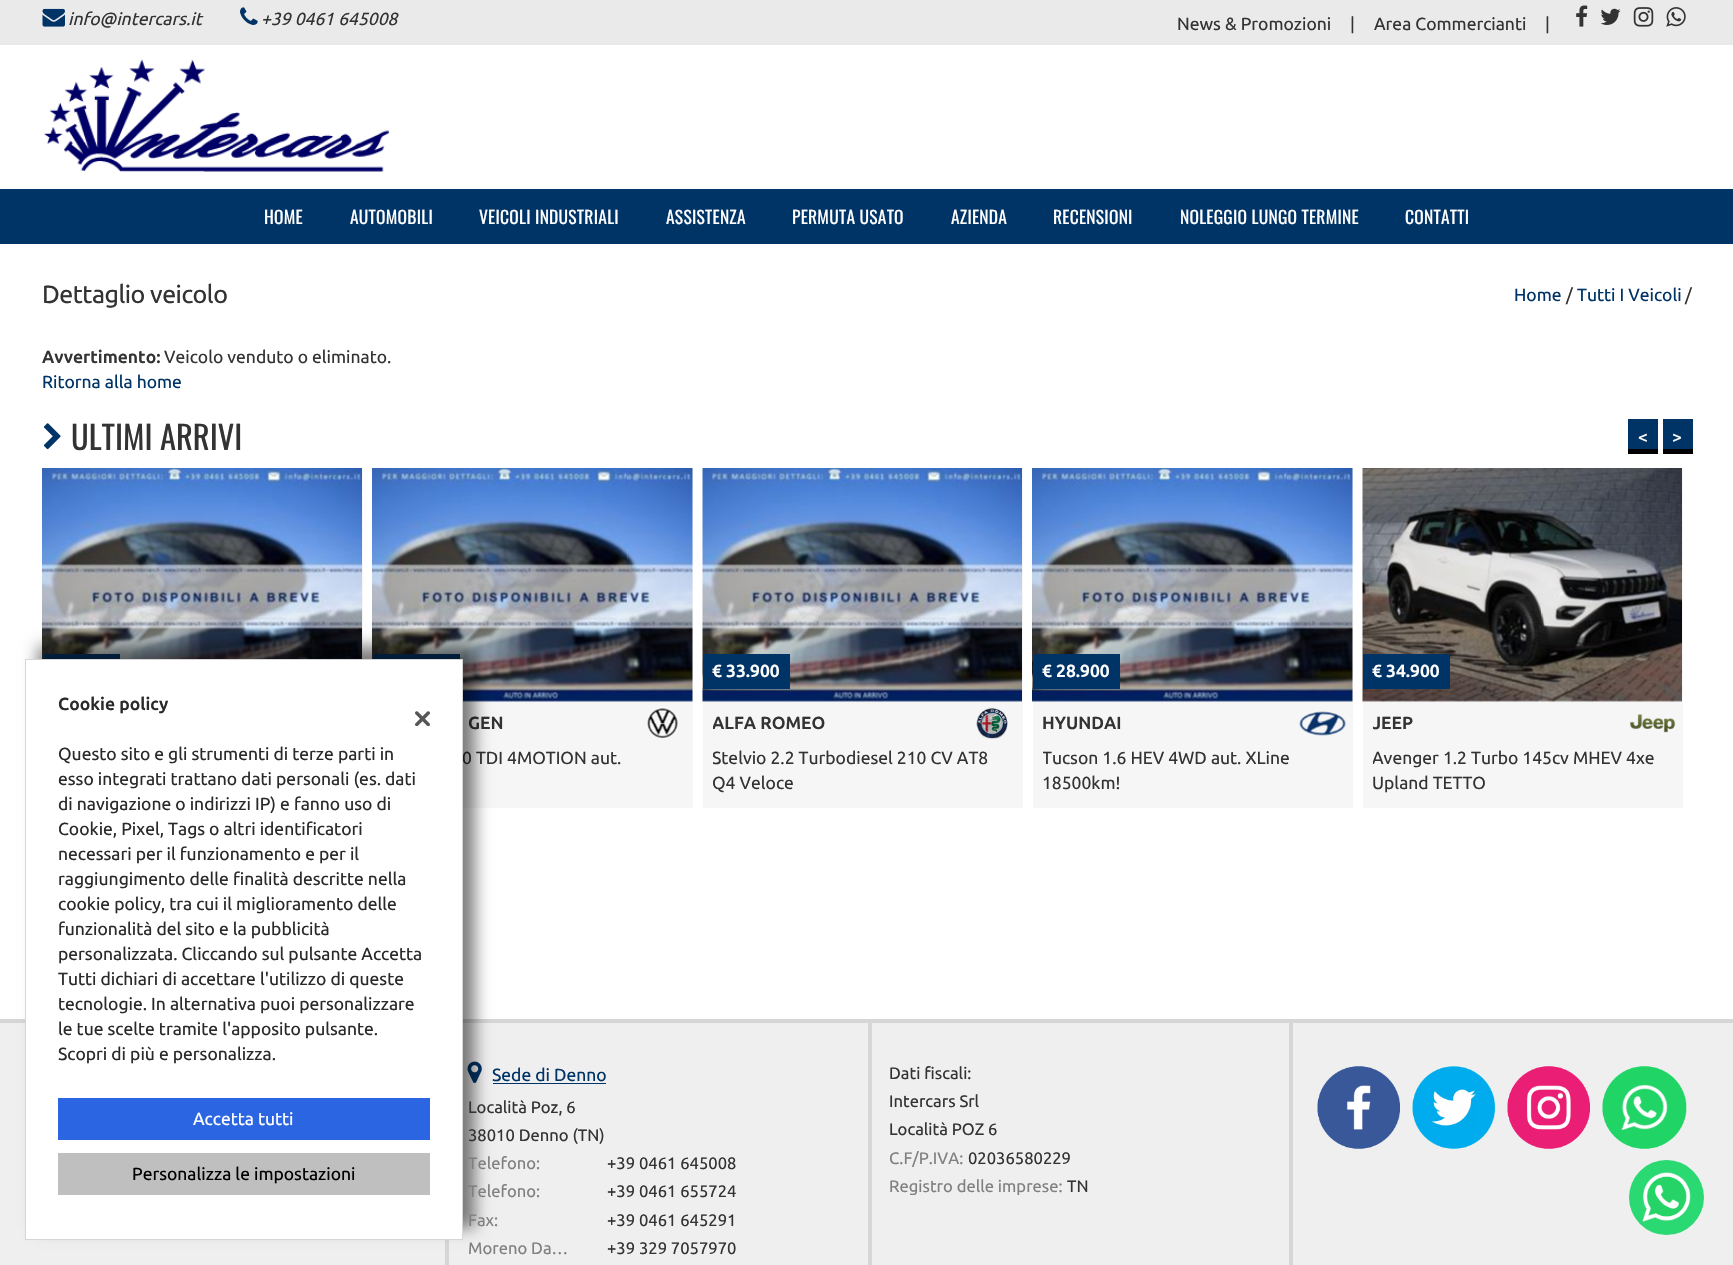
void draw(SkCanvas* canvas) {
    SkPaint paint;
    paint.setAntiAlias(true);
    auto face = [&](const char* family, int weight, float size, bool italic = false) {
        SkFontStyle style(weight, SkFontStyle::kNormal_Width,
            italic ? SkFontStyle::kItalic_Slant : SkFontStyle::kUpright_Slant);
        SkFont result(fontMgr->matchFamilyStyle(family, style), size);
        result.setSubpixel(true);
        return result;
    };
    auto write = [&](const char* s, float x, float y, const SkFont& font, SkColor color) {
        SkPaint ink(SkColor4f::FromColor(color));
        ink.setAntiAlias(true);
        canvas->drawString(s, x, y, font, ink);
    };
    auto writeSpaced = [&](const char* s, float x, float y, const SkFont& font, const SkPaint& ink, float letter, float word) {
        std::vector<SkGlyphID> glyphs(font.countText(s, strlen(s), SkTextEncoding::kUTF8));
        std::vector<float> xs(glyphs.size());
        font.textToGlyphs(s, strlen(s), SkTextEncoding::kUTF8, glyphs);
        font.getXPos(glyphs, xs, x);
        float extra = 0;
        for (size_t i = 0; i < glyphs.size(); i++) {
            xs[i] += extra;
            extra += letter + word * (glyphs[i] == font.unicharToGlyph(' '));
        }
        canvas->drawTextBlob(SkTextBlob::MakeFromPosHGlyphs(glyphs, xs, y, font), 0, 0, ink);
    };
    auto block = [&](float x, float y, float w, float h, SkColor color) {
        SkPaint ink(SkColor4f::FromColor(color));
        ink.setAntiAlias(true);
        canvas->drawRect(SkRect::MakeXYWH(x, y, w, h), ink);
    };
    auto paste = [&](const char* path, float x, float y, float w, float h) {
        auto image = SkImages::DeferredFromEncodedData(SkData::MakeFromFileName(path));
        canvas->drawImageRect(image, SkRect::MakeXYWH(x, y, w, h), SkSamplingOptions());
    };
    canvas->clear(SK_ColorWHITE);
    block(0, 0, 1733, 45, SkColorSetRGB(234, 234, 234));
    paste("pic1.png", 42, 8, 23, 19);
    auto kFont1 = face("Ubuntu", 400, 17.5f, true);
    write("info@intercars.it", 68, 25, kFont1, SkColorSetRGB(51, 51, 51));
    paste("pic2.png", 240, 7, 18, 18);
    write("+39 0461 645008", 261, 25, kFont1, SkColorSetRGB(51, 51, 51));
    auto kFont2 = face("Ubuntu", 400, 17.5f);
    write("News & Promozioni", 1177, 30, kFont2, SkColorSetRGB(51, 51, 51));
    write("|", 1350, 30, kFont2, SkColorSetRGB(51, 51, 51));
    write("Area Commercianti", 1374, 30, kFont2, SkColorSetRGB(51, 51, 51));
    write("|", 1545, 30, kFont2, SkColorSetRGB(51, 51, 51));
    paste("pic3.png", 1576, 5, 12, 22);
    paste("pic4.png", 1600, 8, 21, 17);
    paste("pic5.png", 1633, 7, 21, 20);
    paste("pic6.png", 1666, 7, 20, 20);
    paste("pic7.png", 44, 59, 345, 113);
    block(0, 189, 1733, 55, SkColorSetRGB(0, 51, 102));
    auto kFont3 = face("Oswald", 400, 17.5f);
    paint.setColor(SK_ColorWHITE);
    writeSpaced("HOME", 264, 224, kFont3, paint, 0.25f, 0);
    writeSpaced("AUTOMOBILI", 350, 224, kFont3, paint, 0.25f, 0);
    writeSpaced("VEICOLI INDUSTRIALI", 479, 224, kFont3, paint, 0.25f, 0);
    writeSpaced("ASSISTENZA", 666, 224, kFont3, paint, 0.25f, 0);
    writeSpaced("PERMUTA USATO", 792, 224, kFont3, paint, 0.25f, 0);
    writeSpaced("AZIENDA", 951, 224, kFont3, paint, 0.25f, 0);
    writeSpaced("RECENSIONI", 1053, 224, kFont3, paint, 0.25f, 0);
    writeSpaced("NOLEGGIO LUNGO TERMINE", 1180, 224, kFont3, paint, 0.25f, 0);
    writeSpaced("CONTATTI", 1405, 224, kFont3, paint, 0.25f, 0);
    auto kFont4 = face("Ubuntu", 400, 25);
    paint.setColor(SkColorSetRGB(51, 51, 51));
    writeSpaced("Dettaglio veicolo", 42, 303, kFont4, paint, -0.5f, 0);
    write("Home", 1514, 301, kFont2, SkColorSetRGB(0, 51, 102));
    write("/", 1566, 301, kFont2, SkColorSetRGB(51, 51, 51));
    write("Tutti I Veicoli", 1577, 301, kFont2, SkColorSetRGB(0, 51, 102));
    write("/", 1685, 301, kFont2, SkColorSetRGB(51, 51, 51));
    auto kFont5 = face("Ubuntu", 700, 17.5f);
    write("Avvertimento:", 42, 363, kFont5, SkColorSetRGB(51, 51, 51));
    write("Veicolo venduto o eliminato.", 164, 363, kFont2, SkColorSetRGB(51, 51, 51));
    write("Ritorna alla home", 42, 388, kFont2, SkColorSetRGB(0, 51, 102));
    paste("pic8.png", 44, 423, 17, 27);
    auto kFont6 = face("Oswald", 400, 32.5f);
    write("ULTIMI ARRIVI", 71, 450, kFont6, SkColorSetRGB(51, 51, 51));
    block(1628, 419, 30, 30, SkColorSetRGB(0, 51, 102));
    block(1628, 449, 30, 5, SK_ColorBLACK);
    write("<", 1638, 443, kFont2, SK_ColorWHITE);
    block(1663, 419, 30, 30, SkColorSetRGB(0, 51, 102));
    block(1663, 449, 30, 5, SK_ColorBLACK);
    write(">", 1672, 443, kFont2, SK_ColorWHITE);
    block(362, 468, 1, 191, SkColorSetRGB(246, 246, 246));
    paste("pic9.png", 42, 468, 320, 191);
    block(43, 654, 77, 5, SkColorSetRGB(0, 51, 102));
    block(463, 468, 230, 340, SkColorSetRGB(246, 246, 246));
    paste("pic10.png", 372, 468, 321, 234);
    block(373, 654, 87, 5, SkColorSetRGB(0, 51, 102));
    write("GEN", 468, 729, kFont5, SkColorSetRGB(51, 51, 51));
    paste("pic11.png", 647, 707, 31, 32);
    write("0 TDI 4MOTION aut.", 462, 764, kFont2, SkColorSetRGB(51, 51, 51));
    block(703, 468, 320, 340, SkColorSetRGB(246, 246, 246));
    paste("pic12.png", 702, 468, 320, 234);
    block(703, 654, 87, 35, SkColorSetRGB(0, 51, 102));
    write("€ 33.900", 712, 677, kFont5, SK_ColorWHITE);
    canvas->save();
    canvas->clipRect(SkRect::MakeXYWH(713, 711, 310, 25));
    write("ALFA ROMEO", 712, 729, kFont5, SkColorSetRGB(51, 51, 51));
    canvas->restore();
    paste("pic13.png", 976, 707, 32, 32);
    canvas->save();
    canvas->clipRect(SkRect::MakeXYWH(713, 746, 300, 50));
    write("Stelvio 2.2 Turbodiesel 210 CV AT8", 712, 764, kFont2, SkColorSetRGB(51, 51, 51));
    canvas->restore();
    write("Q4 Veloce", 712, 789, kFont2, SkColorSetRGB(51, 51, 51));
    block(1033, 468, 320, 340, SkColorSetRGB(246, 246, 246));
    paste("pic10.png", 1032, 468, 321, 234);
    block(1033, 654, 87, 35, SkColorSetRGB(0, 51, 102));
    write("€ 28.900", 1042, 677, kFont5, SK_ColorWHITE);
    write("HYUNDAI", 1042, 729, kFont5, SkColorSetRGB(51, 51, 51));
    paste("pic14.png", 1299, 711, 47, 25);
    canvas->save();
    canvas->clipRect(SkRect::MakeXYWH(1043, 746, 300, 50));
    write("Tucson 1.6 HEV 4WD aut. XLine", 1042, 764, kFont2, SkColorSetRGB(51, 51, 51));
    canvas->restore();
    write("18500km!", 1042, 789, kFont2, SkColorSetRGB(51, 51, 51));
    block(1363, 468, 320, 340, SkColorSetRGB(246, 246, 246));
    paste("pic15.png", 1362, 468, 320, 234);
    block(1363, 654, 87, 35, SkColorSetRGB(0, 51, 102));
    write("€ 34.900", 1372, 677, kFont5, SK_ColorWHITE);
    canvas->save();
    canvas->clipRect(SkRect::MakeXYWH(1373, 711, 310, 25));
    write("JEEP", 1372, 729, kFont5, SkColorSetRGB(51, 51, 51));
    canvas->restore();
    paste("pic16.png", 1630, 714, 46, 19);
    canvas->save();
    canvas->clipRect(SkRect::MakeXYWH(1373, 746, 300, 50));
    write("Avenger 1.2 Turbo 145cv MHEV 4xe", 1372, 764, kFont2, SkColorSetRGB(51, 51, 51));
    canvas->restore();
    write("Upland TETTO", 1372, 789, kFont2, SkColorSetRGB(51, 51, 51));
    block(0, 1023, 1733, 242, SkColorSetRGB(239, 239, 239));
    block(0, 1019, 1733, 4, SkColorSetRGB(214, 214, 214));
    block(445, 1240, 4, 25, SkColorSetRGB(214, 214, 214));
    paste("pic18.png", 467, 1061, 15, 22);
    block(493, 1083, 113, 1, SkColorSetRGB(0, 51, 102));
    paint.setColor(SkColorSetARGB(128, 0, 0, 0));
    paint.setMaskFilter(SkMaskFilter::MakeBlur(kNormal_SkBlurStyle, 7.5f));
    canvas->drawRect(SkRect::MakeXYWH(38, 646, 437, 582), paint);
    paint.setMaskFilter(nullptr);
    paint.setColor(SK_ColorWHITE);
    canvas->drawRect(SkRect::MakeXYWH(25.5f, 659.5f, 437, 580), paint);
    paint.setStyle(SkPaint::kStroke_Style);
    paint.setStrokeWidth(1);
    paint.setColor(SkColorSetRGB(214, 214, 214));
    canvas->drawRect(SkRect::MakeXYWH(25.5f, 659.5f, 437, 580), paint);
    write("Cookie policy", 58, 710, kFont5, SkColorSetRGB(43, 41, 41));
    write("Questo sito e gli strumenti di terze parti in", 58, 760, kFont2, SkColorSetRGB(43, 41, 41));
    write("esso integrati trattano dati personali (es. dati", 58, 785, kFont2, SkColorSetRGB(43, 41, 41));
    write("di navigazione o indirizzi IP) e fanno uso di", 58, 810, kFont2, SkColorSetRGB(43, 41, 41));
    write("Cookie, Pixel, Tags o altri identificatori", 58, 835, kFont2, SkColorSetRGB(43, 41, 41));
    write("necessari per il funzionamento e per il", 58, 860, kFont2, SkColorSetRGB(43, 41, 41));
    write("raggiungimento delle finalità descritte nella", 58, 885, kFont2, SkColorSetRGB(43, 41, 41));
    write("cookie policy, tra cui il miglioramento delle", 58, 910, kFont2, SkColorSetRGB(43, 41, 41));
    write("funzionalità del sito e la pubblicità", 58, 935, kFont2, SkColorSetRGB(43, 41, 41));
    write("personalizzata. Cliccando sul pulsante Accetta", 58, 960, kFont2, SkColorSetRGB(43, 41, 41));
    write("Tutti dichiari di accettare l'utilizzo di queste", 58, 985, kFont2, SkColorSetRGB(43, 41, 41));
    write("tecnologie. In alternativa puoi personalizzare", 58, 1010, kFont2, SkColorSetRGB(43, 41, 41));
    write("le tue scelte tramite l'apposito pulsante.", 58, 1035, kFont2, SkColorSetRGB(43, 41, 41));
    write("Scopri di più e personalizza.", 58, 1060, kFont2, SkColorSetRGB(43, 41, 41));
    paste("pic17.png", 415, 711, 15, 15);
    block(58, 1098, 372, 42, SkColorSetRGB(44, 101, 225));
    write("Accetta tutti", 193, 1125, kFont2, SK_ColorWHITE);
    block(58, 1153, 372, 42, SkColorSetRGB(191, 191, 191));
    write("Personalizza le impostazioni", 132, 1180, kFont2, SK_ColorBLACK);
    write("Sede di Denno", 492, 1081, kFont2, SkColorSetRGB(0, 51, 102));
    auto kFont7 = face("Ubuntu", 400, 16.6f);
    write("Località Poz, 6", 468, 1113, kFont7, SkColorSetRGB(51, 51, 51));
    write("38010 Denno (TN)", 468, 1141, kFont7, SkColorSetRGB(51, 51, 51));
    write("Telefono:", 468, 1169, kFont7, SkColorSetRGB(128, 128, 128));
    write("+39 0461 645008", 607, 1169, kFont7, SkColorSetRGB(51, 51, 51));
    write("Telefono:", 468, 1197, kFont7, SkColorSetRGB(128, 128, 128));
    write("+39 0461 655724", 607, 1197, kFont7, SkColorSetRGB(51, 51, 51));
    write("Fax:", 468, 1226, kFont7, SkColorSetRGB(128, 128, 128));
    write("+39 0461 645291", 607, 1226, kFont7, SkColorSetRGB(51, 51, 51));
    write("Moreno Da…", 468, 1254, kFont7, SkColorSetRGB(128, 128, 128));
    write("+39 329 7057970", 607, 1254, kFont7, SkColorSetRGB(51, 51, 51));
    block(868, 1023, 4, 242, SkColorSetRGB(214, 214, 214));
    write("Dati fiscali:", 889, 1079, kFont7, SkColorSetRGB(51, 51, 51));
    write("Intercars Srl", 889, 1107, kFont7, SkColorSetRGB(51, 51, 51));
    write("Località POZ 6", 889, 1135, kFont7, SkColorSetRGB(51, 51, 51));
    write("C.F/P.IVA:", 889, 1164, kFont7, SkColorSetRGB(128, 128, 128));
    write("02036580229", 968, 1164, kFont7, SkColorSetRGB(51, 51, 51));
    write("Registro delle imprese:", 889, 1192, kFont7, SkColorSetRGB(128, 128, 128));
    write("TN", 1067, 1192, kFont7, SkColorSetRGB(51, 51, 51));
    block(1289, 1023, 4, 242, SkColorSetRGB(214, 214, 214));
    paste("pic19.png", 1317, 1066, 83, 83);
    paste("pic20.png", 1412, 1066, 83, 83);
    paste("pic21.png", 1507, 1066, 83, 83);
    paste("pic22.png", 1602, 1066, 85, 83);
    paint.setStyle(SkPaint::kFill_Style);
    paint.setColor(SkColorSetRGB(42, 217, 113));
    canvas->drawCircle(1666.5f, 1197.5f, 37.5f, paint);
    paste("pic23.png", 1642, 1172, 49, 50);
}
